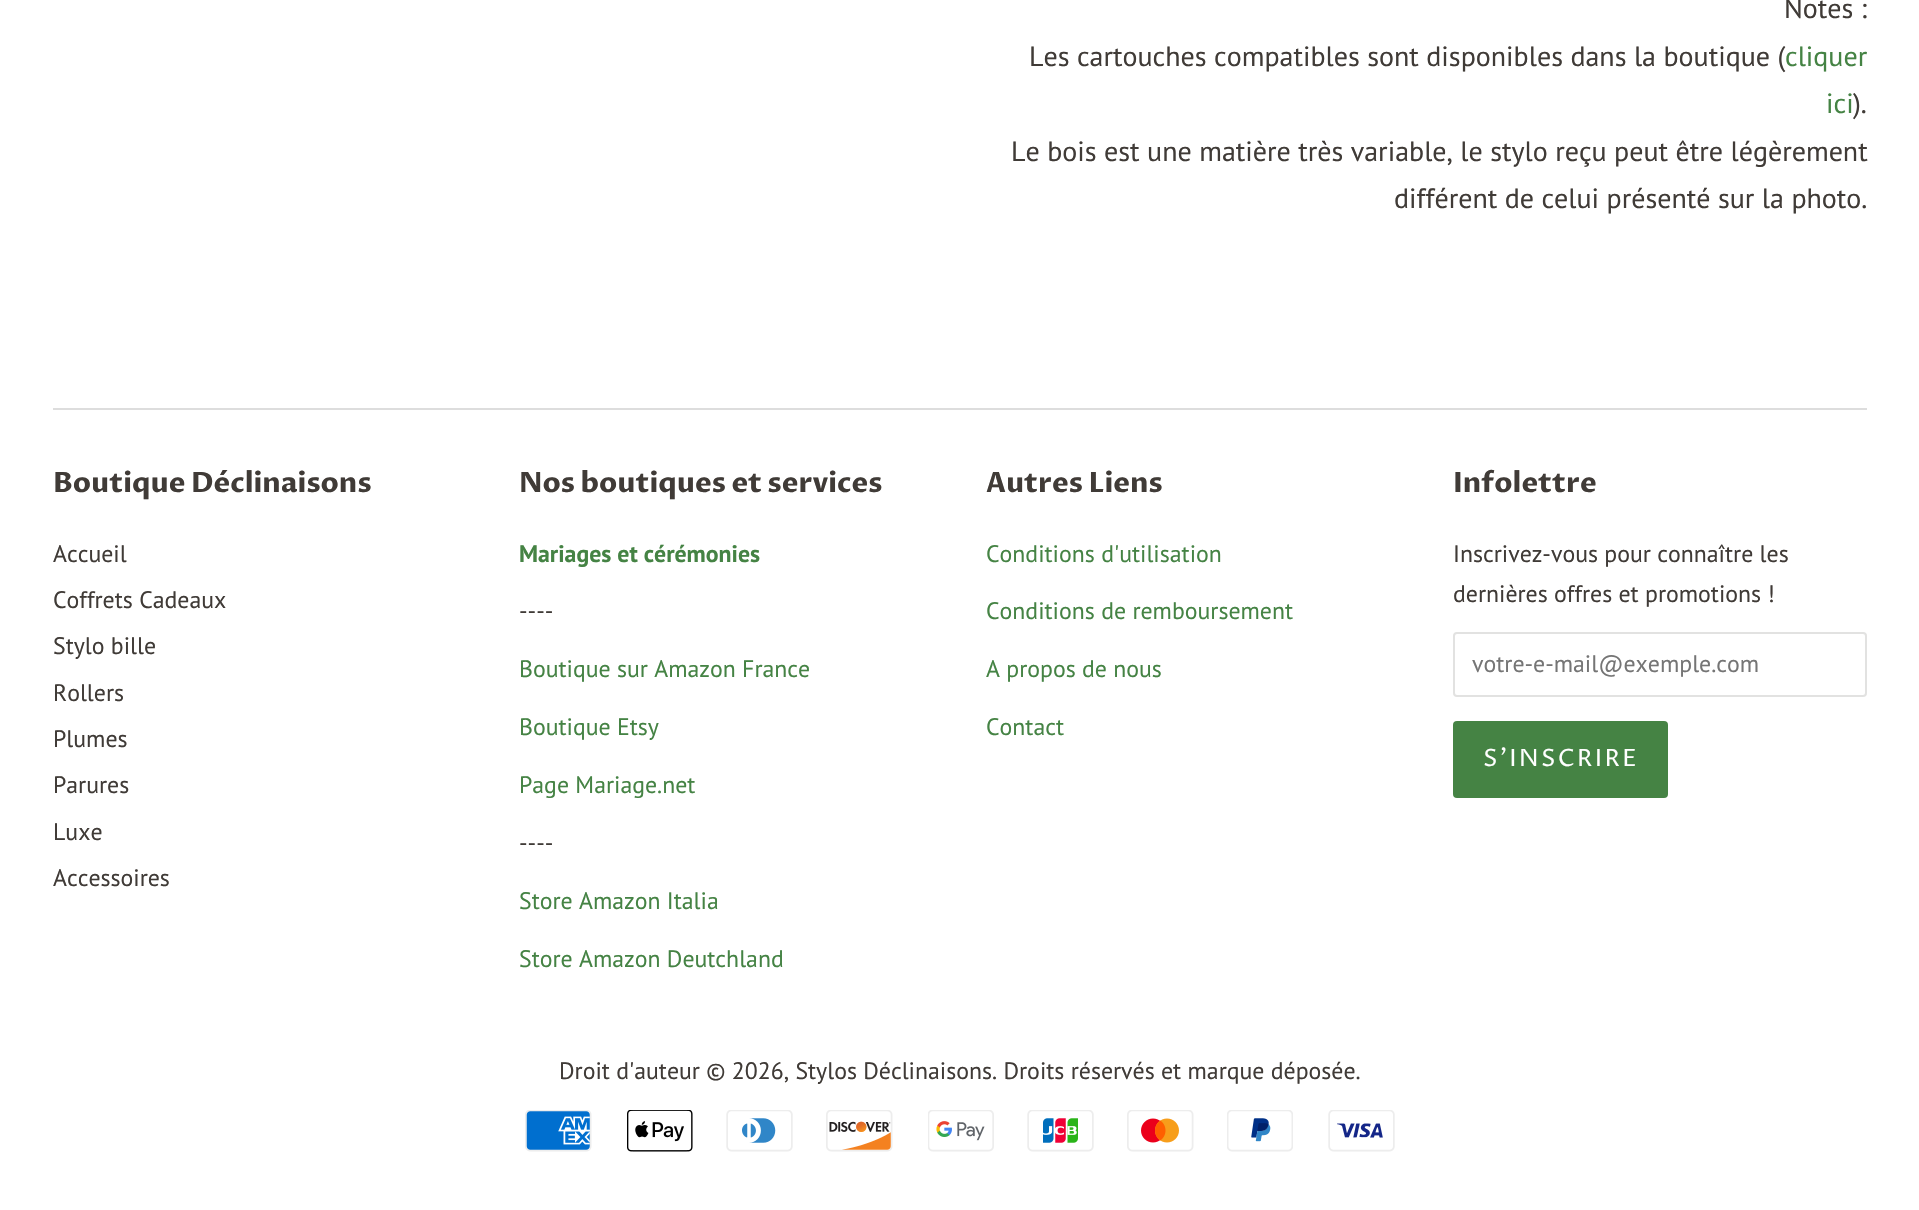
void draw(SkCanvas* canvas) {
    SkPaint paint;
    paint.setAntiAlias(true);
    auto face = [&](const char* family, int weight, float size, bool italic = false) {
        SkFontStyle style(weight, SkFontStyle::kNormal_Width,
            italic ? SkFontStyle::kItalic_Slant : SkFontStyle::kUpright_Slant);
        SkFont result(fontMgr->matchFamilyStyle(family, style), size);
        result.setSubpixel(true);
        return result;
    };
    auto write = [&](const char* s, float x, float y, const SkFont& font, SkColor color) {
        SkPaint ink(SkColor4f::FromColor(color));
        ink.setAntiAlias(true);
        canvas->drawString(s, x, y, font, ink);
    };
    auto writeSpaced = [&](const char* s, float x, float y, const SkFont& font, const SkPaint& ink, float letter, float word) {
        std::vector<SkGlyphID> glyphs(font.countText(s, strlen(s), SkTextEncoding::kUTF8));
        std::vector<float> xs(glyphs.size());
        font.textToGlyphs(s, strlen(s), SkTextEncoding::kUTF8, glyphs);
        font.getXPos(glyphs, xs, x);
        float extra = 0;
        for (size_t i = 0; i < glyphs.size(); i++) {
            xs[i] += extra;
            extra += letter + word * (glyphs[i] == font.unicharToGlyph(' '));
        }
        canvas->drawTextBlob(SkTextBlob::MakeFromPosHGlyphs(glyphs, xs, y, font), 0, 0, ink);
    };
    auto block = [&](float x, float y, float w, float h, SkColor color) {
        SkPaint ink(SkColor4f::FromColor(color));
        ink.setAntiAlias(true);
        canvas->drawRect(SkRect::MakeXYWH(x, y, w, h), ink);
    };
    auto card = [&](float x, float y, float w, float h, float radius, SkColor color) {
        SkPaint ink(SkColor4f::FromColor(color));
        ink.setAntiAlias(true);
        canvas->drawRoundRect(SkRect::MakeXYWH(x, y, w, h), radius, radius, ink);
    };
    auto paste = [&](const char* path, float x, float y, float w, float h) {
        auto image = SkImages::DeferredFromEncodedData(SkData::MakeFromFileName(path));
        canvas->drawImageRect(image, SkRect::MakeXYWH(x, y, w, h), SkSamplingOptions());
    };
    canvas->clear(SK_ColorWHITE);
    auto kFont1 = face("PT Sans", 400, 28);
    write("Notes :", 1784, 18, kFont1, SkColorSetRGB(64, 59, 55));
    write("Les cartouches compatibles sont disponibles dans la boutique (", 1029, 66, kFont1, SkColorSetRGB(64, 59, 55));
    write("cliquer", 1785, 66, kFont1, SkColorSetRGB(69, 131, 68));
    write("ici", 1826, 113, kFont1, SkColorSetRGB(69, 131, 68));
    write(").", 1853, 113, kFont1, SkColorSetRGB(64, 59, 55));
    write("Le bois est une matière très variable, le stylo reçu peut être légèrement", 1011, 161, kFont1, SkColorSetRGB(64, 59, 55));
    write("différent de celui présenté sur la photo.", 1394, 208, kFont1, SkColorSetRGB(64, 59, 55));
    block(53, 408, 1814, 2, SkColorSetRGB(221, 221, 221));
    auto kFont2 = face("Proza Libre", 700, 28);
    write("Boutique Déclinaisons", 53, 492, kFont2, SkColorSetRGB(64, 59, 55));
    auto kFont3 = face("PT Sans", 400, 23.8f);
    write("Accueil", 53, 562, kFont3, SkColorSetRGB(64, 59, 55));
    write("Coffrets Cadeaux", 53, 608, kFont3, SkColorSetRGB(64, 59, 55));
    write("Stylo bille", 53, 654, kFont3, SkColorSetRGB(64, 59, 55));
    write("Rollers", 53, 701, kFont3, SkColorSetRGB(64, 59, 55));
    write("Plumes", 53, 747, kFont3, SkColorSetRGB(64, 59, 55));
    write("Parures", 53, 793, kFont3, SkColorSetRGB(64, 59, 55));
    write("Luxe", 53, 840, kFont3, SkColorSetRGB(64, 59, 55));
    write("Accessoires", 53, 886, kFont3, SkColorSetRGB(64, 59, 55));
    write("Nos boutiques et services", 519, 492, kFont2, SkColorSetRGB(64, 59, 55));
    auto kFont4 = face("PT Sans", 700, 23.8f);
    write("Mariages et cérémonies", 519, 562, kFont4, SkColorSetRGB(69, 131, 68));
    write("----", 519, 619, kFont3, SkColorSetRGB(64, 59, 55));
    write("Boutique sur Amazon France", 519, 677, kFont3, SkColorSetRGB(69, 131, 68));
    write("Boutique Etsy", 519, 735, kFont3, SkColorSetRGB(69, 131, 68));
    write("Page Mariage.net", 519, 793, kFont3, SkColorSetRGB(69, 131, 68));
    write("----", 519, 851, kFont3, SkColorSetRGB(64, 59, 55));
    write("Store Amazon Italia", 519, 909, kFont3, SkColorSetRGB(69, 131, 68));
    write("Store Amazon Deutchland", 519, 967, kFont3, SkColorSetRGB(69, 131, 68));
    write("Autres Liens", 986, 492, kFont2, SkColorSetRGB(64, 59, 55));
    write("Conditions d'utilisation", 986, 562, kFont3, SkColorSetRGB(69, 131, 68));
    write("Conditions de remboursement", 986, 619, kFont3, SkColorSetRGB(69, 131, 68));
    write("A propos de nous", 986, 677, kFont3, SkColorSetRGB(69, 131, 68));
    write("Contact", 986, 735, kFont3, SkColorSetRGB(69, 131, 68));
    write("Infolettre", 1453, 492, kFont2, SkColorSetRGB(64, 59, 55));
    write("Inscrivez-vous pour connaître les", 1453, 562, kFont3, SkColorSetRGB(64, 59, 55));
    write("dernières offres et promotions !", 1453, 602, kFont3, SkColorSetRGB(64, 59, 55));
    paint.setStyle(SkPaint::kStroke_Style);
    paint.setStrokeWidth(2);
    paint.setColor(SkColorSetRGB(226, 226, 225));
    canvas->drawRoundRect(SkRect::MakeXYWH(1454, 633, 412, 63), 3, 3, paint);
    write("votre-e-mail@exemple.com", 1472, 672, kFont3, SkColorSetRGB(117, 117, 117));
    card(1453, 721, 215, 77, 4, SkColorSetRGB(69, 131, 68));
    auto kFont5 = face("Proza Libre", 400, 23.8f);
    paint.setStyle(SkPaint::kFill_Style);
    paint.setColor(SK_ColorWHITE);
    writeSpaced("S'INSCRIRE", 1483, 766, kFont5, paint, 2.4f, 0);
    write("Droit d'auteur © 2026, Stylos Déclinaisons. Droits réservés et marque déposée.", 559, 1079, kFont3, SkColorSetRGB(64, 59, 55));
    paste("pic1.png", 525, 1110, 67, 42);
    paste("pic2.png", 627, 1110, 66, 42);
    paste("pic3.png", 726, 1110, 67, 42);
    paste("pic4.png", 826, 1110, 67, 42);
    paste("pic5.png", 928, 1110, 66, 42);
    paste("pic6.png", 1027, 1110, 67, 42);
    paste("pic7.png", 1127, 1110, 67, 42);
    paste("pic8.png", 1227, 1110, 66, 42);
    paste("pic9.png", 1328, 1110, 67, 42);
}
